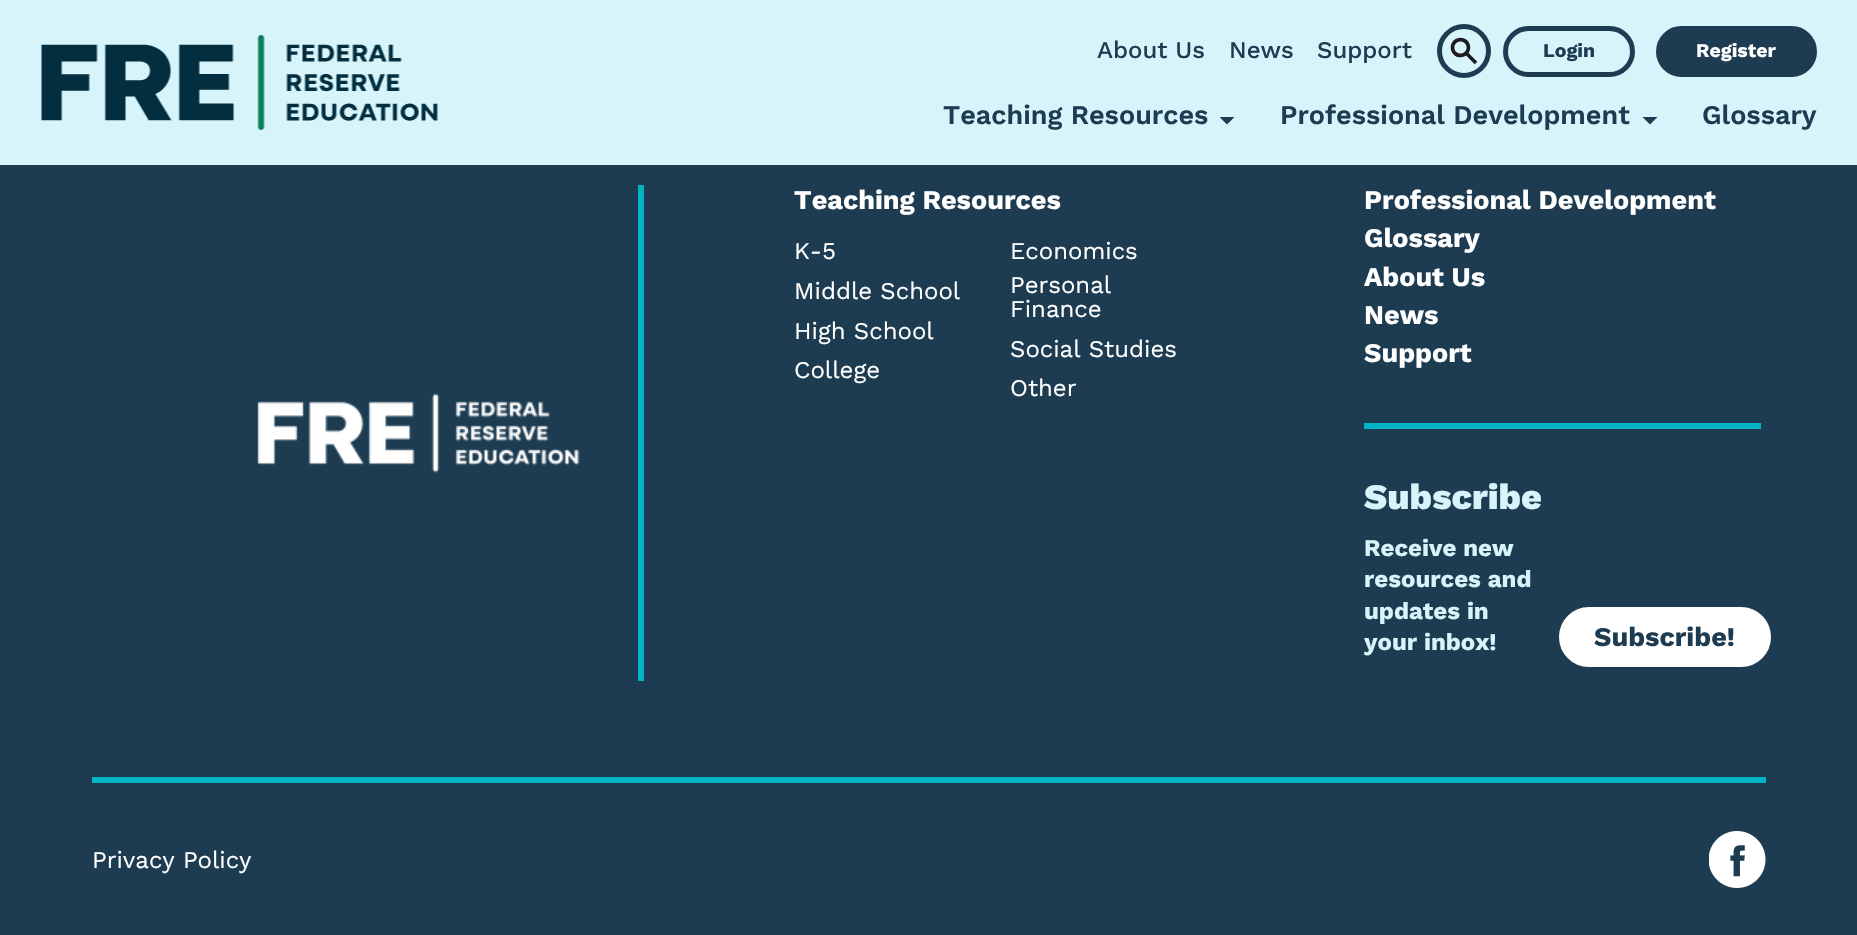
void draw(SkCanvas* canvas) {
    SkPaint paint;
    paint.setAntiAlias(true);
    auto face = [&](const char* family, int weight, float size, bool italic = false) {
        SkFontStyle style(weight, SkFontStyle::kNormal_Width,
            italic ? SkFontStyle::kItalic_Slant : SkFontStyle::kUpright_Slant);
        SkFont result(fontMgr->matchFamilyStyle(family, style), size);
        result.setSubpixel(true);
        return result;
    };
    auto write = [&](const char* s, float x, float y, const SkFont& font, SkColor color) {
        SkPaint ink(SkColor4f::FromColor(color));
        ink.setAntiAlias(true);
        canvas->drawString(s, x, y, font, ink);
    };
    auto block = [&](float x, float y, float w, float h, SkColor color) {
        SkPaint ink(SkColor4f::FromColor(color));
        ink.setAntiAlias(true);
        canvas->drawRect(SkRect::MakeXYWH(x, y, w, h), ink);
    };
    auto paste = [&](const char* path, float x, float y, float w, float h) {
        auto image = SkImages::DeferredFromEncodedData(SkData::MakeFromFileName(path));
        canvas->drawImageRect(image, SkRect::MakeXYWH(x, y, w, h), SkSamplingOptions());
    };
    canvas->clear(SkColorSetRGB(29, 60, 82));
    block(0, 0, 1857, 165, SkColorSetRGB(214, 244, 249));
    paste("pic1.png", 41, 35, 397, 95);
    auto kFont1 = face("Work Sans", 500, 24);
    write("About Us", 1097, 58, kFont1, SkColorSetRGB(29, 60, 82));
    write("News", 1229, 58, kFont1, SkColorSetRGB(29, 60, 82));
    write("Support", 1317, 58, kFont1, SkColorSetRGB(29, 60, 82));
    paint.setStyle(SkPaint::kStroke_Style);
    paint.setStrokeWidth(5);
    paint.setColor(SkColorSetRGB(29, 60, 82));
    canvas->drawCircle(1464, 51, 24.5f, paint);
    paste("pic2.png", 1450, 37, 28, 28);
    canvas->drawRoundRect(SkRect::MakeXYWH(1505.5f, 28.5f, 127, 46), 23, 23, paint);
    auto kFont2 = face("Work Sans", 700, 19.5f);
    write("Login", 1543, 57, kFont2, SkColorSetRGB(29, 60, 82));
    paint.setStyle(SkPaint::kFill_Style);
    canvas->drawRoundRect(SkRect::MakeXYWH(1658.5f, 28.5f, 156, 46), 23, 23, paint);
    paint.setStyle(SkPaint::kStroke_Style);
    canvas->drawRoundRect(SkRect::MakeXYWH(1658.5f, 28.5f, 156, 46), 23, 23, paint);
    write("Register", 1696, 57, kFont2, SK_ColorWHITE);
    auto kFont3 = face("Work Sans", 600, 27);
    write("Teaching Resources", 943, 124, kFont3, SkColorSetRGB(29, 60, 82));
    paint.setStyle(SkPaint::kFill_Style);
    canvas->drawPath(SkPathBuilder().moveTo(1219.5f, 117).lineTo(1234.5f, 117).lineTo(1227, 124.5f).close().detach(), paint);
    write("Professional Development", 1280, 124, kFont3, SkColorSetRGB(29, 60, 82));
    canvas->drawPath(SkPathBuilder().moveTo(1642.5f, 117).lineTo(1657.5f, 117).lineTo(1650, 124.5f).close().detach(), paint);
    write("Glossary", 1702, 124, kFont3, SkColorSetRGB(29, 60, 82));
    block(638, 185, 6, 496, SkColorSetRGB(0, 180, 197));
    paste("pic3.png", 257, 393, 323, 80);
    auto kFont4 = face("Work Sans", 700, 27);
    write("Teaching Resources", 794, 209, kFont4, SK_ColorWHITE);
    auto kFont5 = face("Work Sans", 400, 24);
    write("K-5", 794, 259, kFont5, SK_ColorWHITE);
    write("Middle School", 794, 299, kFont5, SK_ColorWHITE);
    write("High School", 794, 339, kFont5, SK_ColorWHITE);
    write("College", 794, 378, kFont5, SK_ColorWHITE);
    write("Economics", 1010, 259, kFont5, SK_ColorWHITE);
    write("Personal", 1010, 293, kFont5, SK_ColorWHITE);
    write("Finance", 1010, 317, kFont5, SK_ColorWHITE);
    write("Social Studies", 1010, 357, kFont5, SK_ColorWHITE);
    write("Other", 1010, 396, kFont5, SK_ColorWHITE);
    write("Professional Development", 1364, 209, kFont4, SK_ColorWHITE);
    write("Glossary", 1364, 247, kFont4, SK_ColorWHITE);
    write("About Us", 1364, 286, kFont4, SK_ColorWHITE);
    write("News", 1364, 324, kFont4, SK_ColorWHITE);
    write("Support", 1364, 362, kFont4, SK_ColorWHITE);
    block(1364, 423, 397, 6, SkColorSetRGB(0, 180, 197));
    auto kFont6 = face("Work Sans", 800, 36);
    write("Subscribe", 1364, 509, kFont6, SkColorSetRGB(214, 244, 249));
    auto kFont7 = face("Work Sans", 700, 24);
    write("Receive new", 1364, 556, kFont7, SkColorSetRGB(214, 244, 249));
    write("resources and", 1364, 587, kFont7, SkColorSetRGB(214, 244, 249));
    write("updates in", 1364, 619, kFont7, SkColorSetRGB(214, 244, 249));
    write("your inbox!", 1364, 650, kFont7, SkColorSetRGB(214, 244, 249));
    paint.setColor(SK_ColorWHITE);
    canvas->drawRoundRect(SkRect::MakeXYWH(1556.5f, 604.5f, 217, 65), 32.5f, 32.5f, paint);
    paint.setStyle(SkPaint::kStroke_Style);
    paint.setColor(SkColorSetRGB(29, 60, 82));
    canvas->drawRoundRect(SkRect::MakeXYWH(1556.5f, 604.5f, 217, 65), 32.5f, 32.5f, paint);
    write("Subscribe!", 1594, 646, kFont4, SkColorSetRGB(29, 60, 82));
    block(92, 777, 1674, 6, SkColorSetRGB(0, 180, 197));
    write("Privacy Policy", 92, 868, kFont5, SK_ColorWHITE);
    paste("pic4.png", 1709, 831, 57, 57);
}
